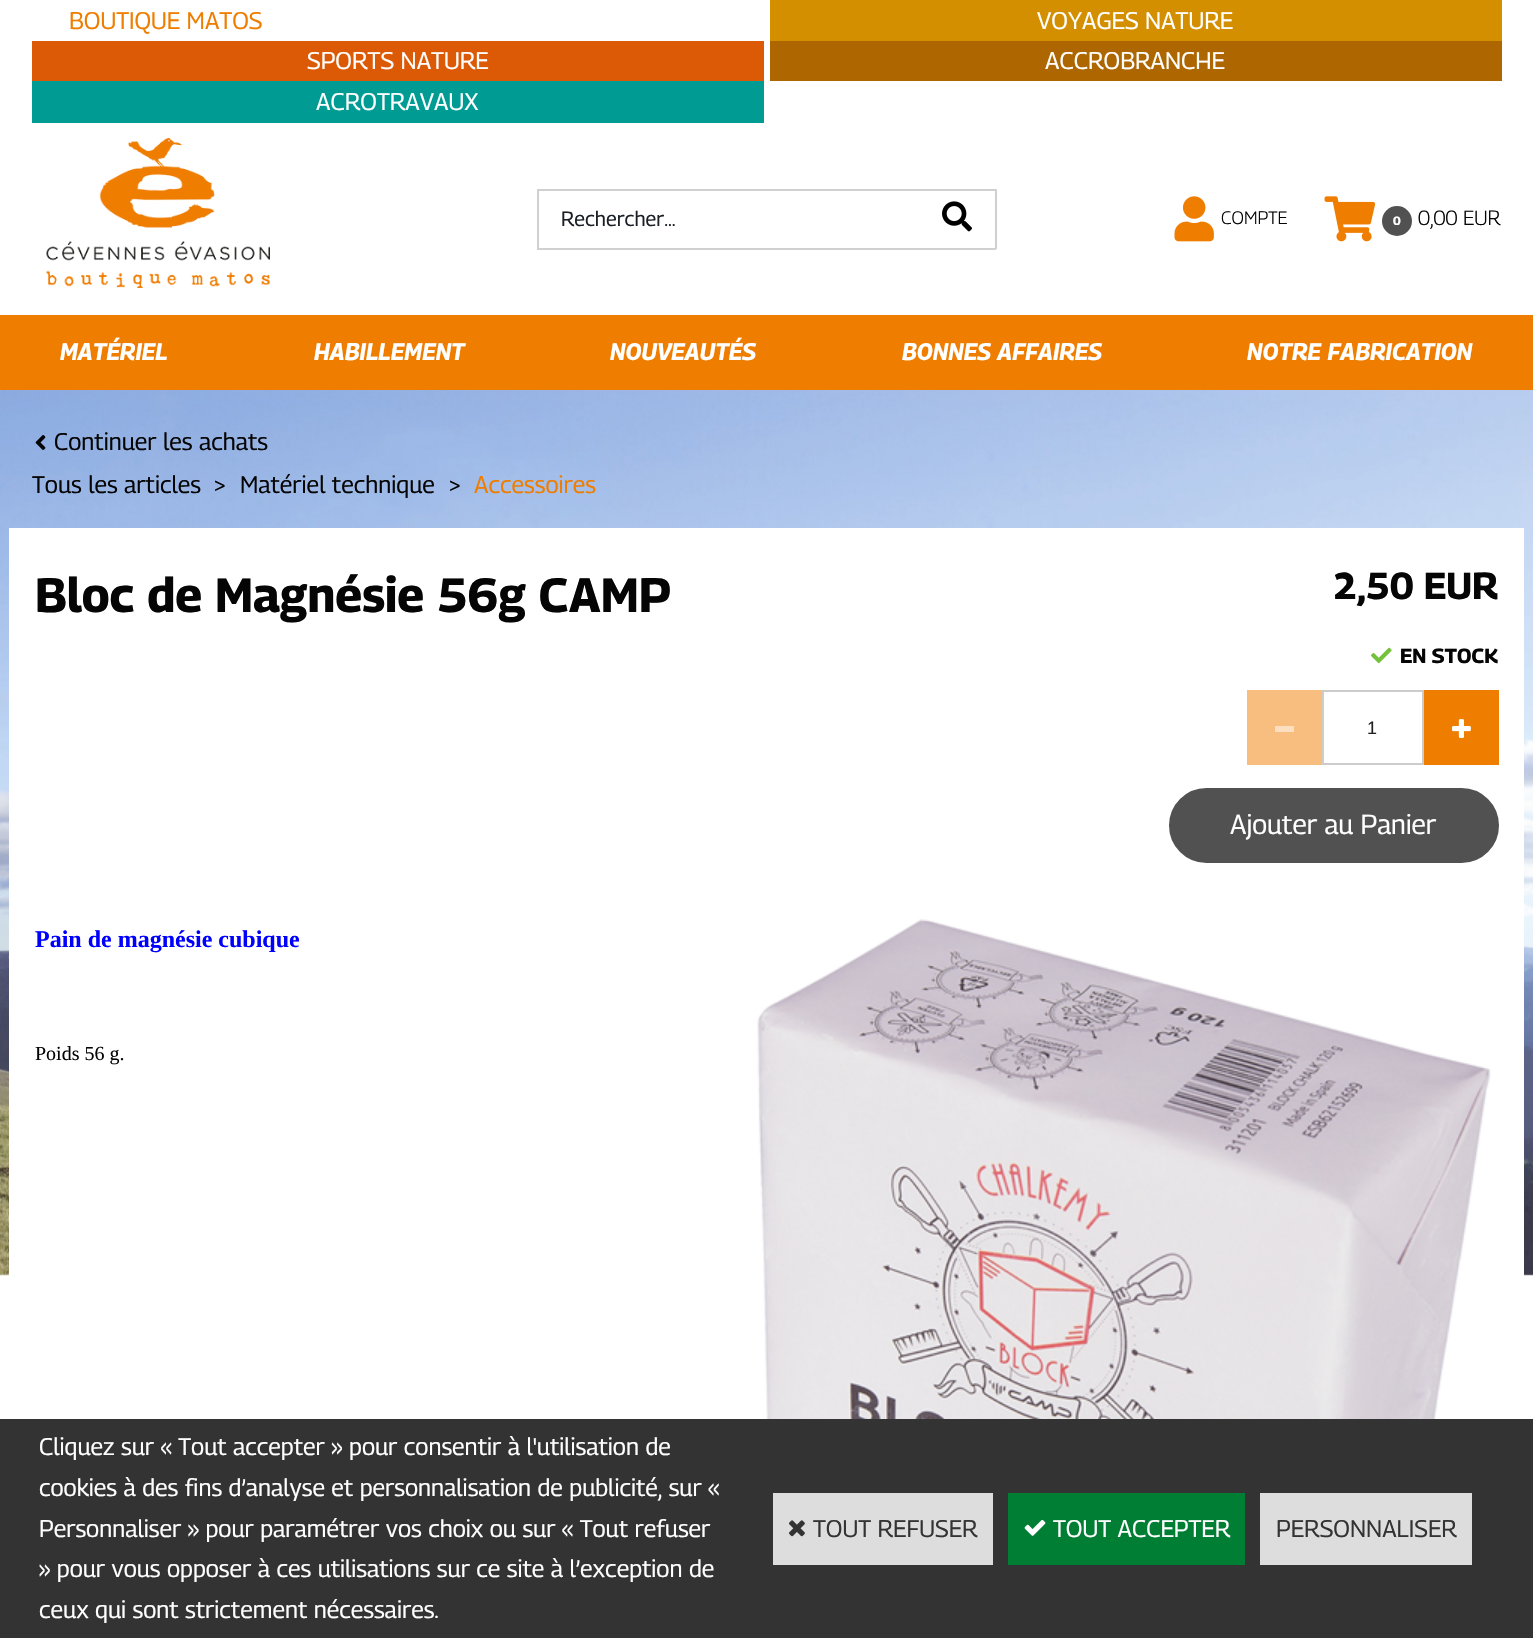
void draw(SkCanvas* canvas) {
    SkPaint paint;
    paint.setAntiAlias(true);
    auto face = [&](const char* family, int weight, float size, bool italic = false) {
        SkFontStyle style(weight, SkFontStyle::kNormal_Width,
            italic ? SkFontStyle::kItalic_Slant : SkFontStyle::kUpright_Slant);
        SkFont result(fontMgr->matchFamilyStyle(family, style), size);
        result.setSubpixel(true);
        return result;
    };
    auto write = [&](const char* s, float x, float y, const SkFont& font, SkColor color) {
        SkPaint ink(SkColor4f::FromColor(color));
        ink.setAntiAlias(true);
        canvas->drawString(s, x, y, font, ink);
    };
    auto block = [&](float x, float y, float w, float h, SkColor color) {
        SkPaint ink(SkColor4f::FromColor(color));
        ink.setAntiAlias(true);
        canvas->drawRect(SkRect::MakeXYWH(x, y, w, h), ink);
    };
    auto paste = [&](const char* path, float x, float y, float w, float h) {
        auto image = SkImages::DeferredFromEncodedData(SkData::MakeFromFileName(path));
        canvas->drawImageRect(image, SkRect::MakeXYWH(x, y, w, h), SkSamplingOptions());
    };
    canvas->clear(SK_ColorWHITE);
    paste("pic1.png", 0, 390, 1533, 886);
    auto kFont1 = face("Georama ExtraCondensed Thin", 400, 24);
    write("BOUTIQUE MATOS", 69, 29, kFont1, SkColorSetRGB(239, 125, 0));
    block(770, 0, 732, 41, SkColorSetRGB(211, 143, 0));
    write("VOYAGES NATURE", 1037, 29, kFont1, SK_ColorWHITE);
    block(32, 41, 732, 40, SkColorSetRGB(220, 90, 6));
    write("SPORTS NATURE", 307, 69, kFont1, SK_ColorWHITE);
    block(770, 41, 732, 40, SkColorSetRGB(174, 102, 0));
    write("ACCROBRANCHE", 1045, 69, kFont1, SK_ColorWHITE);
    block(32, 81, 732, 42, SkColorSetRGB(0, 156, 148));
    write("ACROTRAVAUX", 316, 110, kFont1, SK_ColorWHITE);
    paste("pic2.png", 46, 138, 224, 150);
    block(537, 189, 459, 2, SkColorSetRGB(208, 208, 208));
    block(537, 248, 383, 2, SkColorSetRGB(208, 208, 208));
    block(537, 189, 2, 60, SkColorSetRGB(208, 208, 208));
    auto kFont2 = face("Georama ExtraCondensed Thin", 400, 20.5f);
    write("Rechercher...", 561, 226, kFont2, SkColorSetRGB(26, 31, 38));
    block(995, 189, 2, 60, SkColorSetRGB(208, 208, 208));
    block(920, 248, 76, 2, SkColorSetRGB(208, 208, 208));
    paste("pic3.png", 942, 201, 30, 31);
    paste("pic4.png", 1174, 196, 40, 46);
    auto kFont3 = face("Georama ExtraCondensed Thin", 300, 18);
    write("COMPTE", 1221, 224, kFont3, SkColorSetRGB(5, 5, 5));
    paste("pic5.png", 1324, 196, 52, 46);
    paint.setColor(SkColorSetRGB(81, 81, 81));
    canvas->drawCircle(1397, 221, 15, paint);
    auto kFont4 = face("Georama ExtraCondensed Thin", 700, 12);
    write("0", 1393, 225, kFont4, SK_ColorWHITE);
    auto kFont5 = face("Georama ExtraCondensed Thin", 300, 20.5f);
    write("0,00 EUR", 1418, 225, kFont5, SkColorSetRGB(5, 5, 5));
    block(0, 315, 1533, 75, SkColorSetRGB(239, 125, 0));
    auto kFont6 = face("Georama ExtraCondensed Thin", 700, 24, true);
    write("MATÉRIEL", 60, 360, kFont6, SK_ColorWHITE);
    write("HABILLEMENT", 314, 360, kFont6, SK_ColorWHITE);
    write("NOUVEAUTÉS", 610, 360, kFont6, SK_ColorWHITE);
    write("BONNES AFFAIRES", 902, 360, kFont6, SK_ColorWHITE);
    write("NOTRE FABRICATION", 1247, 360, kFont6, SK_ColorWHITE);
    paste("pic6.png", 35, 435, 11, 15);
    write("Continuer les achats", 54, 450, kFont1, SkColorSetRGB(5, 5, 5));
    write("Tous les articles", 32, 493, kFont1, SkColorSetRGB(5, 5, 5));
    write(">", 214, 493, kFont1, SkColorSetRGB(5, 5, 5));
    write("Matériel technique", 240, 493, kFont1, SkColorSetRGB(5, 5, 5));
    write(">", 449, 493, kFont1, SkColorSetRGB(5, 5, 5));
    write("Accessoires", 474, 493, kFont1, SkColorSetRGB(239, 125, 0));
    block(9, 528, 1515, 748, SK_ColorWHITE);
    auto kFont7 = face("Georama ExtraCondensed Thin", 700, 48);
    write("Bloc de Magnésie 56g CAMP", 35, 612, kFont7, SkColorSetRGB(5, 5, 5));
    auto kFont8 = face("Georama ExtraCondensed Thin", 700, 37.5f);
    write("2,50 EUR", 1333, 599, kFont8, SkColorSetRGB(5, 5, 5));
    paste("pic7.png", 1371, 647, 21, 17);
    auto kFont9 = face("Georama ExtraCondensed Thin", 700, 20.5f);
    write("EN STOCK", 1400, 663, kFont9, SkColorSetRGB(5, 5, 5));
    block(1247, 690, 75, 75, SkColorSetRGB(247, 190, 128));
    block(1275, 726, 19, 6, SkColorSetRGB(251, 223, 192));
    paint.setStyle(SkPaint::kStroke_Style);
    paint.setStrokeWidth(2);
    paint.setColor(SkColorSetRGB(204, 204, 204));
    canvas->drawRect(SkRect::MakeXYWH(1323, 691, 100, 73), paint);
    auto kFont10 = face("Liberation Sans", 400, 18);
    write("1", 1367, 734, kFont10, SkColorSetRGB(33, 33, 33));
    block(1424, 690, 75, 75, SkColorSetRGB(239, 125, 0));
    paste("pic8.png", 1452, 719, 19, 19);
    paint.setStyle(SkPaint::kFill_Style);
    paint.setColor(SkColorSetRGB(81, 81, 81));
    canvas->drawRoundRect(SkRect::MakeXYWH(1170, 789, 328, 73), 36.5f, 36.5f, paint);
    paint.setStyle(SkPaint::kStroke_Style);
    canvas->drawRoundRect(SkRect::MakeXYWH(1170, 789, 328, 73), 36.5f, 36.5f, paint);
    auto kFont11 = face("Georama ExtraCondensed Thin", 400, 27.25f);
    write("Ajouter au Panier", 1230, 834, kFont11, SK_ColorWHITE);
    auto kFont12 = face("Liberation Serif", 700, 24);
    write("Pain de magnésie cubique", 35, 947, kFont12, SkColorSetRGB(0, 0, 255));
    auto kFont13 = face("Liberation Serif", 400, 20);
    write("Poids 56 g.", 35, 1060, kFont13, SkColorSetRGB(5, 5, 5));
    paste("pic9.png", 757, 919, 734, 500);
    block(0, 1419, 1533, 219, SkColorSetRGB(51, 51, 51));
    write("Cliquez sur « Tout accepter » pour consentir à l'utilisation de", 39, 1455, kFont1, SK_ColorWHITE);
    write("cookies à des fins d’analyse et personnalisation de publicité, sur «", 39, 1496, kFont1, SK_ColorWHITE);
    write("Personnaliser » pour paramétrer vos choix ou sur « Tout refuser", 39, 1537, kFont1, SK_ColorWHITE);
    write("» pour vous opposer à ces utilisations sur ce site à l’exception de", 39, 1577, kFont1, SK_ColorWHITE);
    write("ceux qui sont strictement nécessaires.", 39, 1618, kFont1, SK_ColorWHITE);
    block(773, 1493, 220, 72, SkColorSetRGB(221, 221, 221));
    paste("pic10.png", 789, 1520, 16, 17);
    write("TOUT REFUSER", 813, 1537, kFont1, SkColorSetRGB(51, 51, 51));
    block(1008, 1493, 237, 72, SkColorSetRGB(0, 126, 51));
    paste("pic11.png", 1024, 1519, 22, 17);
    write("TOUT ACCEPTER", 1053, 1537, kFont1, SK_ColorWHITE);
    block(1260, 1493, 212, 72, SkColorSetRGB(221, 221, 221));
    write("PERSONNALISER", 1276, 1537, kFont1, SkColorSetRGB(51, 51, 51));
}
